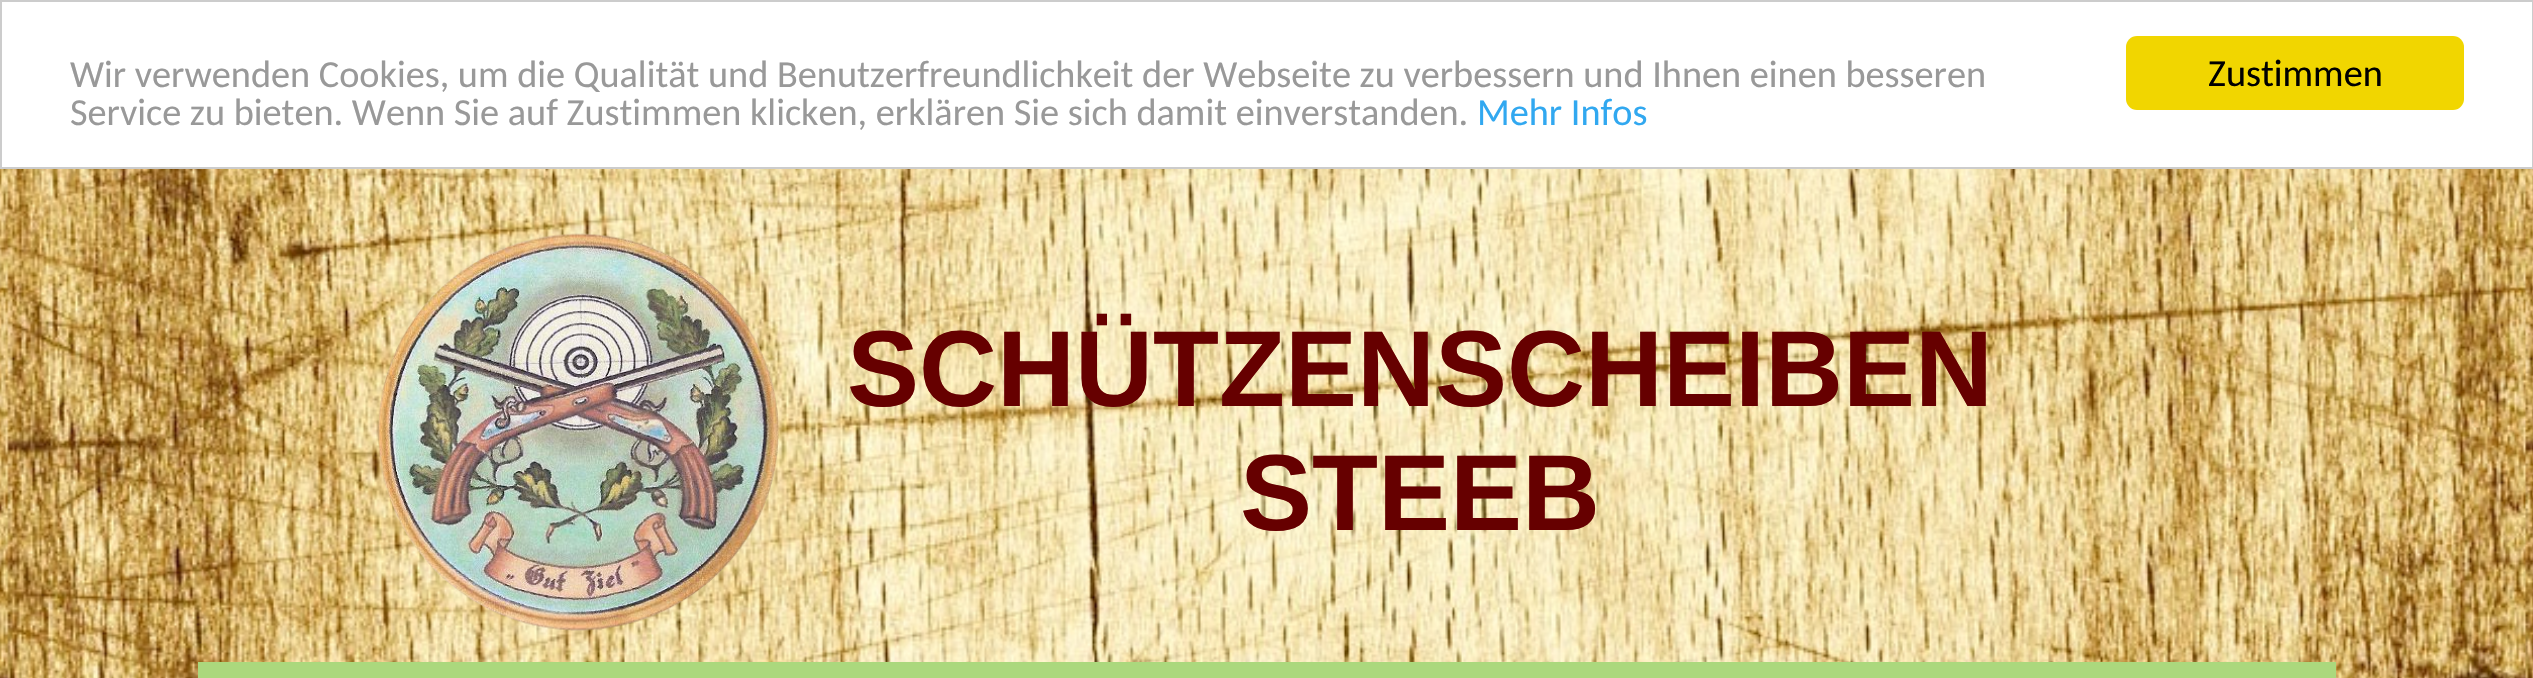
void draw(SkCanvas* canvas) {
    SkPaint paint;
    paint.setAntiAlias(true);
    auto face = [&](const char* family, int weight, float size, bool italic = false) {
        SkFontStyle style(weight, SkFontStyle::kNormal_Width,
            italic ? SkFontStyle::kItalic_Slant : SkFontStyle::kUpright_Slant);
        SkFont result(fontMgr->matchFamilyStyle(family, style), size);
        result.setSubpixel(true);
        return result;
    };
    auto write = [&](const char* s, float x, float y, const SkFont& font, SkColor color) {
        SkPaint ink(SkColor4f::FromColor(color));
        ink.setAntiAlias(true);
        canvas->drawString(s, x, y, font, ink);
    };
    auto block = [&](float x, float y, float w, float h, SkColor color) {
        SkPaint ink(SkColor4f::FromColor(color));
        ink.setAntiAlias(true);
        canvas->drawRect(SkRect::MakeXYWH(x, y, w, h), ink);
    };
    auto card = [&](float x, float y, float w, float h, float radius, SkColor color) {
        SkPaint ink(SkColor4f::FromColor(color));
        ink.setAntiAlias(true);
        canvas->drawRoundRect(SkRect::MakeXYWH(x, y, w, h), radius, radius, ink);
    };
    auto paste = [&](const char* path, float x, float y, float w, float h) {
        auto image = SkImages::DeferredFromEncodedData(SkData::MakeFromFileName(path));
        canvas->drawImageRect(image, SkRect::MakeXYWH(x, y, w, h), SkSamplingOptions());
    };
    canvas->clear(SK_ColorWHITE);
    paste("pic1.png", 0, 169, 2533, 509);
    paint.setStyle(SkPaint::kStroke_Style);
    paint.setStrokeWidth(2);
    paint.setColor(SkColorSetRGB(204, 204, 204));
    canvas->drawRect(SkRect::MakeXYWH(1, 1, 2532, 167), paint);
    auto kFont1 = face("Carlito", 400, 38.25f);
    write("Wir verwenden Cookies, um die Qualität und Benutzerfreundlichkeit der Webseite zu verbessern und Ihnen einen besseren", 70, 87, kFont1, SkColorSetRGB(153, 153, 153));
    write("Service zu bieten. Wenn Sie auf Zustimmen klicken, erklären Sie sich damit einverstanden.", 70, 125, kFont1, SkColorSetRGB(153, 153, 153));
    write("Mehr Infos", 1477, 125, kFont1, SkColorSetRGB(49, 168, 240));
    card(2126, 36, 338, 74, 11, SkColorSetRGB(241, 214, 0));
    write("Zustimmen", 2208, 86, kFont1, SK_ColorBLACK);
    paste("pic2.png", 377, 233, 402, 398);
    auto kFont2 = face("Liberation Sans", 700, 108);
    write("SCHÜTZENSCHEIBEN", 847, 406, kFont2, SkColorSetRGB(102, 0, 0));
    write("STEEB", 1240, 530, kFont2, SkColorSetRGB(102, 0, 0));
    block(198, 662, 2138, 16, SkColorSetRGB(171, 216, 125));
}
